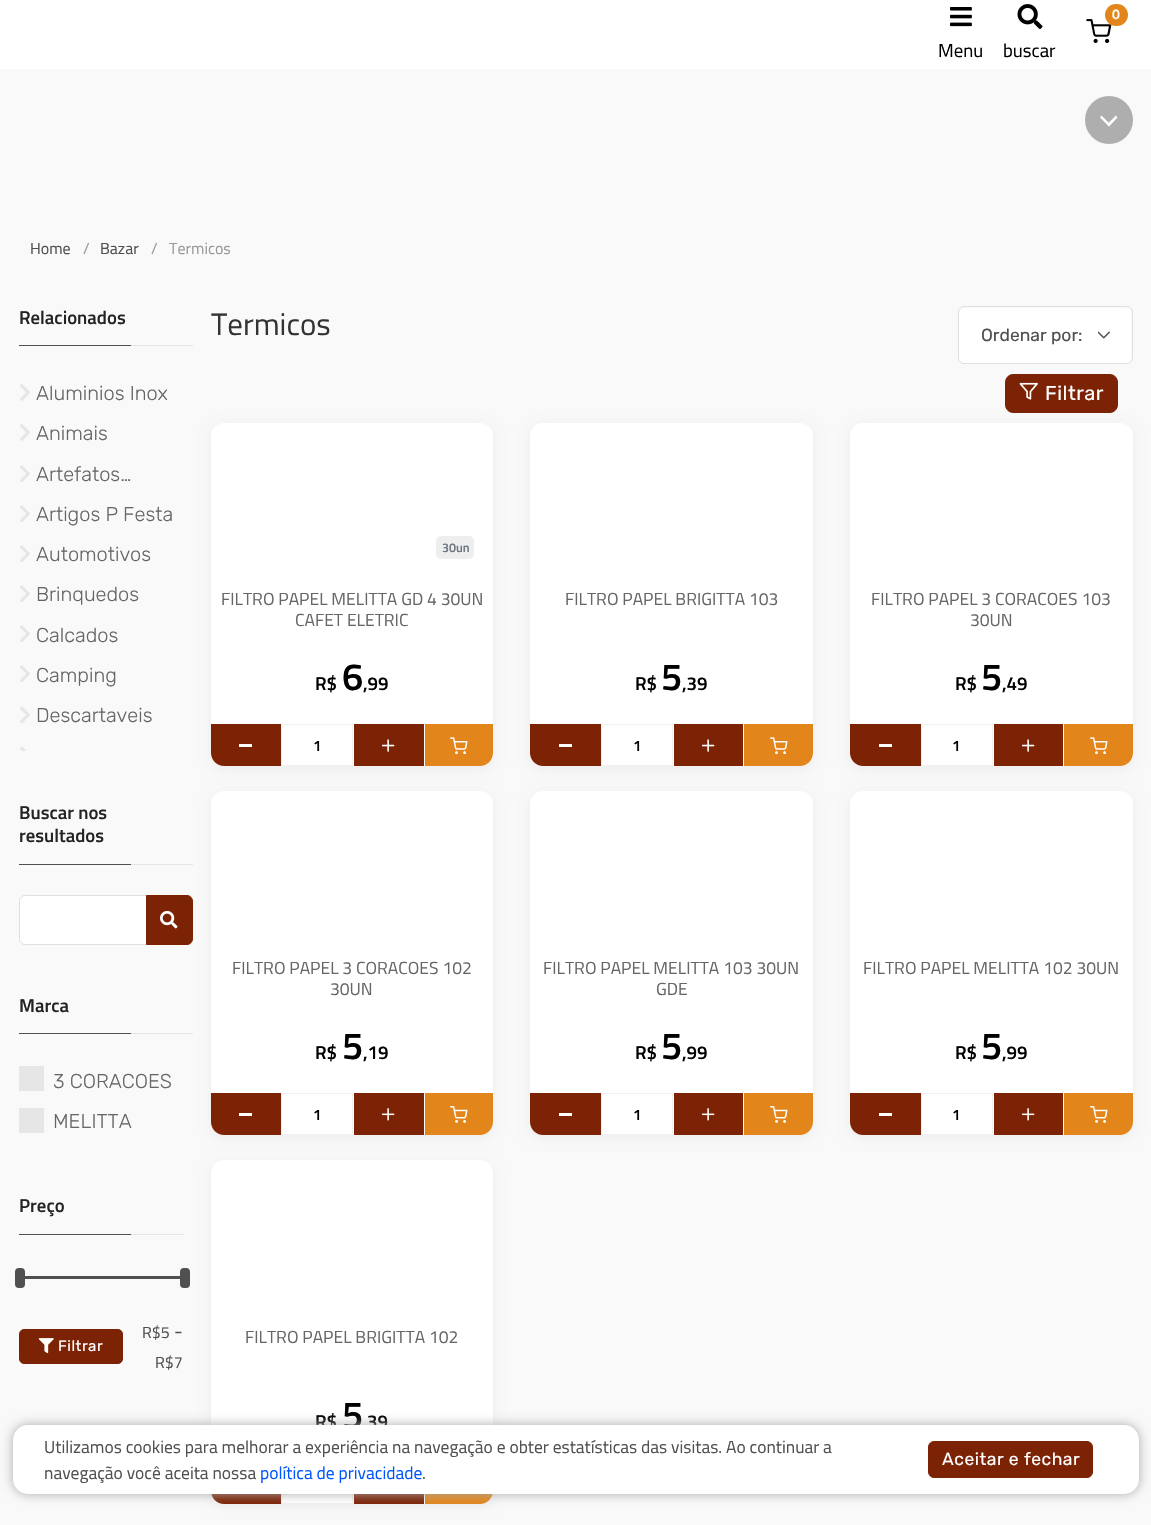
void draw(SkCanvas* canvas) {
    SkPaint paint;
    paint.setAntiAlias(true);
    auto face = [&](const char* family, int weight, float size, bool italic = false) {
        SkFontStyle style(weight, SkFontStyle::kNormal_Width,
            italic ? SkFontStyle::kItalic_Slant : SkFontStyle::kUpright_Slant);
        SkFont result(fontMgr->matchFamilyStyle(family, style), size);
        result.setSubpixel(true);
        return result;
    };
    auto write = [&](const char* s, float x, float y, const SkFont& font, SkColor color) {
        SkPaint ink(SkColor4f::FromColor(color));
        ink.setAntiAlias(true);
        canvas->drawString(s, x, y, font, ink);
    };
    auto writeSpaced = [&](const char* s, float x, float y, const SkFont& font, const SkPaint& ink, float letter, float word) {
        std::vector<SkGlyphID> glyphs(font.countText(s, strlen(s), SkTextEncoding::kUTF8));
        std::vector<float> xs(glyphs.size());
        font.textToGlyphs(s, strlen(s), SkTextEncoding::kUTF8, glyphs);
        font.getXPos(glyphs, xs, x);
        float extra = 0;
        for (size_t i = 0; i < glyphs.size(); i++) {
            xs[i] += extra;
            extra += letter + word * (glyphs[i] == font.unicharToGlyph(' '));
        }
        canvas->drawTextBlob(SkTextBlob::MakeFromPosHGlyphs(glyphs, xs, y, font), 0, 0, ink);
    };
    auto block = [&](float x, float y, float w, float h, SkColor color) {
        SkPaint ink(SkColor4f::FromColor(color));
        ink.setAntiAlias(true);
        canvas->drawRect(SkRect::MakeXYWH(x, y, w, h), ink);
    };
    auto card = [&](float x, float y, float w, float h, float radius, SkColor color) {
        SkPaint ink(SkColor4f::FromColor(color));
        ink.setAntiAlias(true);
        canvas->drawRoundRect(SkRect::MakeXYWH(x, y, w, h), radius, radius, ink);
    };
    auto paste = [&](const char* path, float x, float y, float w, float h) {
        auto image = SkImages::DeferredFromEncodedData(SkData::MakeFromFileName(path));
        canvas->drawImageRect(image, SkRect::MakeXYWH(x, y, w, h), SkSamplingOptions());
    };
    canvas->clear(SkColorSetRGB(249, 249, 249));
    block(0, 0, 1151, 69, SK_ColorWHITE);
    paste("pic1.png", 1086, 19, 26, 24);
    card(1105, 4, 23, 22, 11, SkColorSetRGB(226, 134, 27));
    auto kFont1 = face("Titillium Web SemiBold", 600, 14);
    write("0", 1112, 19, kFont1, SK_ColorWHITE);
    paste("pic2.png", 950, 7, 22, 20);
    auto kFont2 = face("Titillium Web", 400, 18.75f);
    write("Menu", 938, 57, kFont2, SK_ColorBLACK);
    paste("pic3.png", 1017, 4, 26, 25);
    write("buscar", 1003, 57, kFont2, SK_ColorBLACK);
    paint.setColor(SkColorSetRGB(174, 174, 174));
    canvas->drawCircle(1109, 120, 24, paint);
    paint.setColor(SK_ColorWHITE);
    canvas->drawPath(SkPathBuilder().moveTo(1117.5f, 117.5f).lineTo(1109, 126.5f).lineTo(1107, 124.5f).lineTo(1116, 115.5f).close().detach(), paint);
    canvas->drawPath(SkPathBuilder().moveTo(1110.5f, 124.5f).lineTo(1109, 126.5f).lineTo(1100, 117.5f).lineTo(1101.5f, 115.5f).close().detach(), paint);
    auto kFont3 = face("Titillium Web", 400, 16);
    write("Home", 30, 254, kFont3, SkColorSetRGB(80, 80, 80));
    write("/", 83, 254, kFont3, SkColorSetRGB(153, 153, 153));
    write("Bazar", 100, 254, kFont3, SkColorSetRGB(80, 80, 80));
    write("/", 151, 254, kFont3, SkColorSetRGB(153, 153, 153));
    write("Termicos", 169, 254, kFont3, SkColorSetRGB(153, 153, 153));
    block(131, 345, 62, 1, SkColorSetRGB(229, 229, 229));
    auto kFont4 = face("Titillium Web SemiBold", 600, 18.75f);
    write("Relacionados", 19, 324, kFont4, SkColorSetRGB(35, 35, 35));
    block(19, 345, 112, 1, SkColorSetRGB(80, 80, 80));
    paste("pic4.png", 20, 384, 10, 17);
    auto kFont5 = face("Rubik", 300, 20);
    write("Aluminios Inox", 36, 400, kFont5, SkColorSetRGB(102, 102, 102));
    paste("pic4.png", 20, 424, 10, 17);
    write("Animais", 36, 440, kFont5, SkColorSetRGB(102, 102, 102));
    paste("pic5.png", 20, 465, 10, 17);
    write("Artefatos…", 36, 481, kFont5, SkColorSetRGB(102, 102, 102));
    paste("pic5.png", 20, 505, 10, 17);
    write("Artigos P Festa", 36, 521, kFont5, SkColorSetRGB(102, 102, 102));
    paste("pic5.png", 20, 545, 10, 17);
    write("Automotivos", 36, 561, kFont5, SkColorSetRGB(102, 102, 102));
    paste("pic5.png", 20, 585, 10, 17);
    write("Brinquedos", 36, 601, kFont5, SkColorSetRGB(102, 102, 102));
    paste("pic5.png", 20, 625, 10, 17);
    write("Calcados", 36, 642, kFont5, SkColorSetRGB(102, 102, 102));
    paste("pic5.png", 20, 665, 10, 17);
    write("Camping", 36, 682, kFont5, SkColorSetRGB(102, 102, 102));
    paste("pic6.png", 20, 706, 10, 18);
    write("Descartaveis", 36, 722, kFont5, SkColorSetRGB(102, 102, 102));
    paste("pic7.png", 20, 746, 6, 5);
    block(131, 864, 62, 1, SkColorSetRGB(229, 229, 229));
    write("Buscar nos", 19, 819, kFont4, SkColorSetRGB(35, 35, 35));
    write("resultados", 19, 842, kFont4, SkColorSetRGB(35, 35, 35));
    block(19, 864, 112, 1, SkColorSetRGB(80, 80, 80));
    canvas->drawPath(SkPathBuilder().moveTo(25, 896).lineTo(146, 896).lineTo(146, 944).lineTo(25, 944).cubicTo(22, 944, 20, 942, 20, 939).lineTo(20, 901).cubicTo(20, 898, 22, 896, 25, 896).close().detach(), paint);
    paint.setStyle(SkPaint::kStroke_Style);
    paint.setStrokeWidth(1);
    paint.setColor(SkColorSetRGB(224, 224, 224));
    canvas->drawPath(SkPathBuilder().moveTo(25, 895.5f).lineTo(147.5f, 895.5f).lineTo(147.5f, 944.5f).lineTo(25, 944.5f).cubicTo(22, 944.5f, 19.5f, 942, 19.5f, 939).lineTo(19.5f, 901).cubicTo(19.5f, 898, 22, 895.5f, 25, 895.5f).close().detach(), paint);
    block(131, 1033, 62, 1, SkColorSetRGB(229, 229, 229));
    paint.setStyle(SkPaint::kFill_Style);
    paint.setColor(SkColorSetARGB(13, 0, 0, 0));
    paint.setMaskFilter(SkMaskFilter::MakeBlur(kNormal_SkBlurStyle, 6));
    canvas->drawRoundRect(SkRect::MakeXYWH(211, 794, 282, 344), 13, 13, paint);
    paint.setMaskFilter(nullptr);
    paint.setColor(SkColorSetRGB(124, 35, 5));
    canvas->drawPath(SkPathBuilder().moveTo(146.5f, 895.5f).lineTo(187, 895.5f).cubicTo(190, 895.5f, 192.5f, 898, 192.5f, 901).lineTo(192.5f, 939).cubicTo(192.5f, 942, 190, 944.5f, 187, 944.5f).lineTo(146.5f, 944.5f).close().detach(), paint);
    paint.setStyle(SkPaint::kStroke_Style);
    canvas->drawPath(SkPathBuilder().moveTo(146.5f, 895.5f).lineTo(187, 895.5f).cubicTo(190, 895.5f, 192.5f, 898, 192.5f, 901).lineTo(192.5f, 939).cubicTo(192.5f, 942, 190, 944.5f, 187, 944.5f).lineTo(146.5f, 944.5f).close().detach(), paint);
    paste("pic8.png", 160, 910, 18, 19);
    write("Marca", 19, 1012, kFont4, SkColorSetRGB(35, 35, 35));
    block(19, 1033, 112, 1, SkColorSetRGB(80, 80, 80));
    block(19, 1066, 25, 25, SkColorSetRGB(230, 230, 230));
    write("3 CORACOES", 53, 1088, kFont5, SkColorSetRGB(102, 102, 102));
    block(19, 1108, 25, 25, SkColorSetRGB(230, 230, 230));
    write("MELITTA", 53, 1128, kFont5, SkColorSetRGB(102, 102, 102));
    block(131, 1234, 53, 1, SkColorSetRGB(229, 229, 229));
    write("Preço", 19, 1212, kFont4, SkColorSetRGB(35, 35, 35));
    block(19, 1234, 112, 1, SkColorSetRGB(80, 80, 80));
    block(19, 1276, 165, 3, SkColorSetRGB(80, 80, 80));
    card(15, 1268, 10, 20, 4, SkColorSetRGB(80, 80, 80));
    card(180, 1268, 10, 20, 4, SkColorSetRGB(80, 80, 80));
    paint.setStyle(SkPaint::kFill_Style);
    canvas->drawRoundRect(SkRect::MakeXYWH(19.5f, 1329.5f, 103, 34), 4.5f, 4.5f, paint);
    paint.setStyle(SkPaint::kStroke_Style);
    canvas->drawRoundRect(SkRect::MakeXYWH(19.5f, 1329.5f, 103, 34), 4.5f, 4.5f, paint);
    paste("pic9.png", 38, 1338, 16, 16);
    auto kFont6 = face("Rubik", 400, 15);
    paint.setStyle(SkPaint::kFill_Style);
    paint.setColor(SK_ColorWHITE);
    writeSpaced("Filtrar", 58, 1351, kFont6, paint, 0.5f, 0);
    write("R$5", 142, 1338, kFont3, SkColorSetRGB(80, 80, 80));
    auto kFont7 = face("Titillium Web", 400, 20);
    write("-", 174, 1338, kFont7, SkColorSetRGB(80, 80, 80));
    write("R$7", 155, 1368, kFont3, SkColorSetRGB(80, 80, 80));
    auto kFont8 = face("Titillium Web", 400, 31);
    write("Termicos", 211, 335, kFont8, SkColorSetRGB(51, 51, 51));
    card(959, 308, 172, 55, 5, SK_ColorWHITE);
    paste("pic10.png", 1098, 331, 12, 8);
    paint.setStyle(SkPaint::kStroke_Style);
    paint.setColor(SkColorSetRGB(224, 224, 224));
    canvas->drawRoundRect(SkRect::MakeXYWH(958.5f, 306.5f, 174, 57), 5.5f, 5.5f, paint);
    auto kFont9 = face("Rubik", 400, 17.5f);
    write("Ordenar por:", 981, 341, kFont9, SkColorSetRGB(80, 80, 80));
    paint.setStyle(SkPaint::kFill_Style);
    paint.setColor(SkColorSetRGB(124, 35, 5));
    canvas->drawRoundRect(SkRect::MakeXYWH(1005.5f, 374.5f, 112, 38), 7.5f, 7.5f, paint);
    paint.setStyle(SkPaint::kStroke_Style);
    canvas->drawRoundRect(SkRect::MakeXYWH(1005.5f, 374.5f, 112, 38), 7.5f, 7.5f, paint);
    paste("pic11.png", 1019, 382, 19, 18);
    auto kFont10 = face("Rubik", 400, 20);
    paint.setStyle(SkPaint::kFill_Style);
    paint.setColor(SK_ColorWHITE);
    writeSpaced("Filtrar", 1045, 400, kFont10, paint, 0.5f, 0);
    paint.setColor(SkColorSetARGB(13, 0, 0, 0));
    paint.setMaskFilter(SkMaskFilter::MakeBlur(kNormal_SkBlurStyle, 6));
    canvas->drawRoundRect(SkRect::MakeXYWH(211, 425, 282, 344), 13, 13, paint);
    paint.setMaskFilter(nullptr);
    card(211, 423, 282, 343, 13, SK_ColorWHITE);
    paint.setColor(SkColorSetARGB(204, 255, 255, 255));
    canvas->drawPath(SkPathBuilder().moveTo(211, 570).lineTo(493, 570).lineTo(493, 753).cubicTo(493, 760, 487, 766, 480, 766).lineTo(224, 766).cubicTo(217, 766, 211, 760, 211, 753).close().detach(), paint);
    card(436, 536, 38, 23, 5, SkColorSetRGB(238, 238, 238));
    auto kFont11 = face("Titillium Web SemiBold", 600, 12.5f);
    write("30un", 442, 552, kFont11, SkColorSetRGB(108, 117, 125));
    auto kFont12 = face("Titillium Web", 400, 17.5f);
    write("FILTRO PAPEL MELITTA GD 4 30UN", 221, 605, kFont12, SkColorSetRGB(102, 102, 102));
    write("CAFET ELETRIC", 295, 626, kFont12, SkColorSetRGB(102, 102, 102));
    write("R$", 315, 690, kFont4, SK_ColorBLACK);
    auto kFont13 = face("Titillium Web SemiBold", 600, 38);
    write("6", 342, 690, kFont13, SK_ColorBLACK);
    write(",99", 363, 690, kFont4, SK_ColorBLACK);
    paint.setColor(SkColorSetRGB(124, 35, 5));
    canvas->drawPath(SkPathBuilder().moveTo(211, 724).lineTo(281, 724).lineTo(281, 766).lineTo(224, 766).cubicTo(217, 766, 211, 760, 211, 753).close().detach(), paint);
    block(239, 744, 13, 3, SK_ColorWHITE);
    paint.setStyle(SkPaint::kStroke_Style);
    paint.setColor(SkColorSetRGB(241, 241, 241));
    canvas->drawRect(SkRect::MakeXYWH(281.5f, 724.5f, 71, 41), paint);
    auto kFont14 = face("Titillium Web SemiBold", 600, 15);
    write("1", 313, 751, kFont14, SK_ColorBLACK);
    block(354, 724, 70, 42, SkColorSetRGB(124, 35, 5));
    paste("pic12.png", 381, 739, 14, 13);
    paint.setStyle(SkPaint::kFill_Style);
    paint.setColor(SkColorSetRGB(226, 134, 27));
    canvas->drawPath(SkPathBuilder().moveTo(424, 724).lineTo(493, 724).lineTo(493, 753).cubicTo(493, 760, 487, 766, 480, 766).lineTo(424, 766).close().detach(), paint);
    block(424, 724, 1, 42, SK_ColorWHITE);
    paste("pic13.png", 450, 737, 18, 18);
    paint.setColor(SkColorSetARGB(13, 0, 0, 0));
    paint.setMaskFilter(SkMaskFilter::MakeBlur(kNormal_SkBlurStyle, 6));
    canvas->drawRoundRect(SkRect::MakeXYWH(530, 425, 283, 344), 13, 13, paint);
    paint.setMaskFilter(nullptr);
    card(530, 423, 283, 343, 13, SK_ColorWHITE);
    paint.setColor(SkColorSetARGB(204, 255, 255, 255));
    canvas->drawPath(SkPathBuilder().moveTo(530, 570).lineTo(813, 570).lineTo(813, 753).cubicTo(813, 760, 807, 766, 800, 766).lineTo(543, 766).cubicTo(536, 766, 530, 760, 530, 753).close().detach(), paint);
    write("FILTRO PAPEL BRIGITTA 103", 565, 605, kFont12, SkColorSetRGB(102, 102, 102));
    write("R$", 635, 690, kFont4, SK_ColorBLACK);
    write("5", 661, 690, kFont13, SK_ColorBLACK);
    write(",39", 682, 690, kFont4, SK_ColorBLACK);
    paint.setColor(SkColorSetRGB(124, 35, 5));
    canvas->drawPath(SkPathBuilder().moveTo(530, 724).lineTo(601, 724).lineTo(601, 766).lineTo(543, 766).cubicTo(536, 766, 530, 760, 530, 753).close().detach(), paint);
    block(559, 744, 13, 3, SK_ColorWHITE);
    paint.setStyle(SkPaint::kStroke_Style);
    paint.setColor(SkColorSetRGB(241, 241, 241));
    canvas->drawRect(SkRect::MakeXYWH(601.5f, 724.5f, 71, 41), paint);
    write("1", 633, 751, kFont14, SK_ColorBLACK);
    block(674, 724, 69, 42, SkColorSetRGB(124, 35, 5));
    paste("pic12.png", 701, 739, 14, 13);
    paint.setStyle(SkPaint::kFill_Style);
    paint.setColor(SkColorSetRGB(226, 134, 27));
    canvas->drawPath(SkPathBuilder().moveTo(743, 724).lineTo(813, 724).lineTo(813, 753).cubicTo(813, 760, 807, 766, 800, 766).lineTo(743, 766).close().detach(), paint);
    block(743, 724, 1, 42, SK_ColorWHITE);
    paste("pic13.png", 770, 737, 18, 18);
    paint.setColor(SkColorSetARGB(13, 0, 0, 0));
    paint.setMaskFilter(SkMaskFilter::MakeBlur(kNormal_SkBlurStyle, 6));
    canvas->drawRoundRect(SkRect::MakeXYWH(850, 425, 283, 344), 13, 13, paint);
    paint.setMaskFilter(nullptr);
    card(850, 423, 283, 343, 13, SK_ColorWHITE);
    paint.setColor(SkColorSetARGB(204, 255, 255, 255));
    canvas->drawPath(SkPathBuilder().moveTo(850, 570).lineTo(1133, 570).lineTo(1133, 753).cubicTo(1133, 760, 1127, 766, 1120, 766).lineTo(863, 766).cubicTo(856, 766, 850, 760, 850, 753).close().detach(), paint);
    write("FILTRO PAPEL 3 CORACOES 103", 871, 605, kFont12, SkColorSetRGB(102, 102, 102));
    write("30UN", 970, 626, kFont12, SkColorSetRGB(102, 102, 102));
    write("R$", 955, 690, kFont4, SK_ColorBLACK);
    write("5", 981, 690, kFont13, SK_ColorBLACK);
    write(",49", 1002, 690, kFont4, SK_ColorBLACK);
    paint.setColor(SkColorSetRGB(124, 35, 5));
    canvas->drawPath(SkPathBuilder().moveTo(850, 724).lineTo(921, 724).lineTo(921, 766).lineTo(863, 766).cubicTo(856, 766, 850, 760, 850, 753).close().detach(), paint);
    block(879, 744, 13, 3, SK_ColorWHITE);
    paint.setStyle(SkPaint::kStroke_Style);
    paint.setColor(SkColorSetRGB(241, 241, 241));
    canvas->drawRect(SkRect::MakeXYWH(921.5f, 724.5f, 71, 41), paint);
    write("1", 952, 751, kFont14, SK_ColorBLACK);
    block(994, 724, 69, 42, SkColorSetRGB(124, 35, 5));
    paste("pic12.png", 1021, 739, 14, 13);
    paint.setStyle(SkPaint::kFill_Style);
    paint.setColor(SkColorSetRGB(226, 134, 27));
    canvas->drawPath(SkPathBuilder().moveTo(1063, 724).lineTo(1133, 724).lineTo(1133, 753).cubicTo(1133, 760, 1127, 766, 1120, 766).lineTo(1063, 766).close().detach(), paint);
    block(1063, 724, 1, 42, SK_ColorWHITE);
    paste("pic13.png", 1090, 737, 18, 18);
    card(211, 791, 282, 344, 13, SK_ColorWHITE);
    paint.setColor(SkColorSetARGB(204, 255, 255, 255));
    canvas->drawPath(SkPathBuilder().moveTo(211, 939).lineTo(493, 939).lineTo(493, 1122).cubicTo(493, 1129, 487, 1135, 480, 1135).lineTo(224, 1135).cubicTo(217, 1135, 211, 1129, 211, 1122).close().detach(), paint);
    write("FILTRO PAPEL 3 CORACOES 102", 232, 974, kFont12, SkColorSetRGB(102, 102, 102));
    write("30UN", 330, 995, kFont12, SkColorSetRGB(102, 102, 102));
    write("R$", 315, 1059, kFont4, SK_ColorBLACK);
    write("5", 342, 1059, kFont13, SK_ColorBLACK);
    write(",19", 363, 1059, kFont4, SK_ColorBLACK);
    paint.setColor(SkColorSetRGB(124, 35, 5));
    canvas->drawPath(SkPathBuilder().moveTo(211, 1093).lineTo(281, 1093).lineTo(281, 1135).lineTo(224, 1135).cubicTo(217, 1135, 211, 1129, 211, 1122).close().detach(), paint);
    block(239, 1113, 13, 3, SK_ColorWHITE);
    paint.setStyle(SkPaint::kStroke_Style);
    paint.setColor(SkColorSetRGB(241, 241, 241));
    canvas->drawRect(SkRect::MakeXYWH(281.5f, 1093.5f, 71, 41), paint);
    write("1", 313, 1120, kFont14, SK_ColorBLACK);
    block(354, 1093, 70, 42, SkColorSetRGB(124, 35, 5));
    paste("pic14.png", 381, 1108, 14, 13);
    paint.setStyle(SkPaint::kFill_Style);
    paint.setColor(SkColorSetRGB(226, 134, 27));
    canvas->drawPath(SkPathBuilder().moveTo(424, 1093).lineTo(493, 1093).lineTo(493, 1122).cubicTo(493, 1129, 487, 1135, 480, 1135).lineTo(424, 1135).close().detach(), paint);
    block(424, 1093, 1, 42, SK_ColorWHITE);
    paste("pic15.png", 450, 1106, 18, 17);
    paint.setColor(SkColorSetARGB(13, 0, 0, 0));
    paint.setMaskFilter(SkMaskFilter::MakeBlur(kNormal_SkBlurStyle, 6));
    canvas->drawRoundRect(SkRect::MakeXYWH(530, 794, 283, 344), 13, 13, paint);
    paint.setMaskFilter(nullptr);
    card(530, 791, 283, 344, 13, SK_ColorWHITE);
    paint.setColor(SkColorSetARGB(204, 255, 255, 255));
    canvas->drawPath(SkPathBuilder().moveTo(530, 939).lineTo(813, 939).lineTo(813, 1122).cubicTo(813, 1129, 807, 1135, 800, 1135).lineTo(543, 1135).cubicTo(536, 1135, 530, 1129, 530, 1122).close().detach(), paint);
    write("FILTRO PAPEL MELITTA 103 30UN", 543, 974, kFont12, SkColorSetRGB(102, 102, 102));
    write("GDE", 656, 995, kFont12, SkColorSetRGB(102, 102, 102));
    write("R$", 635, 1059, kFont4, SK_ColorBLACK);
    write("5", 661, 1059, kFont13, SK_ColorBLACK);
    write(",99", 682, 1059, kFont4, SK_ColorBLACK);
    paint.setColor(SkColorSetRGB(124, 35, 5));
    canvas->drawPath(SkPathBuilder().moveTo(530, 1093).lineTo(601, 1093).lineTo(601, 1135).lineTo(543, 1135).cubicTo(536, 1135, 530, 1129, 530, 1122).close().detach(), paint);
    block(559, 1113, 13, 3, SK_ColorWHITE);
    paint.setStyle(SkPaint::kStroke_Style);
    paint.setColor(SkColorSetRGB(241, 241, 241));
    canvas->drawRect(SkRect::MakeXYWH(601.5f, 1093.5f, 71, 41), paint);
    write("1", 633, 1120, kFont14, SK_ColorBLACK);
    block(674, 1093, 69, 42, SkColorSetRGB(124, 35, 5));
    paste("pic14.png", 701, 1108, 14, 13);
    paint.setStyle(SkPaint::kFill_Style);
    paint.setColor(SkColorSetRGB(226, 134, 27));
    canvas->drawPath(SkPathBuilder().moveTo(743, 1093).lineTo(813, 1093).lineTo(813, 1122).cubicTo(813, 1129, 807, 1135, 800, 1135).lineTo(743, 1135).close().detach(), paint);
    block(743, 1093, 1, 42, SK_ColorWHITE);
    paste("pic15.png", 770, 1106, 18, 17);
    paint.setColor(SkColorSetARGB(13, 0, 0, 0));
    paint.setMaskFilter(SkMaskFilter::MakeBlur(kNormal_SkBlurStyle, 6));
    canvas->drawRoundRect(SkRect::MakeXYWH(850, 794, 283, 344), 13, 13, paint);
    paint.setMaskFilter(nullptr);
    card(850, 791, 283, 344, 13, SK_ColorWHITE);
    paint.setColor(SkColorSetARGB(204, 255, 255, 255));
    canvas->drawPath(SkPathBuilder().moveTo(850, 939).lineTo(1133, 939).lineTo(1133, 1122).cubicTo(1133, 1129, 1127, 1135, 1120, 1135).lineTo(863, 1135).cubicTo(856, 1135, 850, 1129, 850, 1122).close().detach(), paint);
    write("FILTRO PAPEL MELITTA 102 30UN", 863, 974, kFont12, SkColorSetRGB(102, 102, 102));
    write("R$", 955, 1059, kFont4, SK_ColorBLACK);
    write("5", 981, 1059, kFont13, SK_ColorBLACK);
    write(",99", 1002, 1059, kFont4, SK_ColorBLACK);
    paint.setColor(SkColorSetRGB(124, 35, 5));
    canvas->drawPath(SkPathBuilder().moveTo(850, 1093).lineTo(921, 1093).lineTo(921, 1135).lineTo(863, 1135).cubicTo(856, 1135, 850, 1129, 850, 1122).close().detach(), paint);
    block(879, 1113, 13, 3, SK_ColorWHITE);
    paint.setStyle(SkPaint::kStroke_Style);
    paint.setColor(SkColorSetRGB(241, 241, 241));
    canvas->drawRect(SkRect::MakeXYWH(921.5f, 1093.5f, 71, 41), paint);
    write("1", 952, 1120, kFont14, SK_ColorBLACK);
    block(994, 1093, 69, 42, SkColorSetRGB(124, 35, 5));
    paste("pic14.png", 1021, 1108, 14, 13);
    paint.setStyle(SkPaint::kFill_Style);
    paint.setColor(SkColorSetRGB(226, 134, 27));
    canvas->drawPath(SkPathBuilder().moveTo(1063, 1093).lineTo(1133, 1093).lineTo(1133, 1122).cubicTo(1133, 1129, 1127, 1135, 1120, 1135).lineTo(1063, 1135).close().detach(), paint);
    block(1063, 1093, 1, 42, SK_ColorWHITE);
    paste("pic15.png", 1090, 1106, 18, 17);
    paint.setColor(SkColorSetARGB(13, 0, 0, 0));
    paint.setMaskFilter(SkMaskFilter::MakeBlur(kNormal_SkBlurStyle, 6));
    canvas->drawRoundRect(SkRect::MakeXYWH(211, 1163, 282, 343), 13, 13, paint);
    paint.setMaskFilter(nullptr);
    card(211, 1160, 282, 344, 13, SK_ColorWHITE);
    write("FILTRO PAPEL BRIGITTA 102", 245, 1343, kFont12, SkColorSetRGB(102, 102, 102));
    write("R$", 315, 1428, kFont4, SK_ColorBLACK);
    write("5", 342, 1428, kFont13, SK_ColorBLACK);
    write("39", 367, 1428, kFont4, SK_ColorBLACK);
    paint.setColor(SkColorSetRGB(124, 35, 5));
    canvas->drawPath(SkPathBuilder().moveTo(211, 1461).lineTo(281, 1461).lineTo(281, 1504).lineTo(224, 1504).cubicTo(217, 1504, 211, 1498, 211, 1491).close().detach(), paint);
    paint.setStyle(SkPaint::kStroke_Style);
    paint.setColor(SkColorSetRGB(241, 241, 241));
    canvas->drawRect(SkRect::MakeXYWH(281.5f, 1461.5f, 71, 42), paint);
    block(354, 1494, 70, 10, SkColorSetRGB(124, 35, 5));
    paint.setStyle(SkPaint::kFill_Style);
    paint.setColor(SkColorSetRGB(226, 134, 27));
    canvas->drawPath(SkPathBuilder().moveTo(424, 1461).lineTo(493, 1461).lineTo(493, 1491).cubicTo(493, 1498, 487, 1504, 480, 1504).lineTo(424, 1504).close().detach(), paint);
    block(424, 1494, 1, 10, SK_ColorWHITE);
    paint.setColor(SkColorSetRGB(170, 170, 170));
    paint.setMaskFilter(SkMaskFilter::MakeBlur(kNormal_SkBlurStyle, 6));
    canvas->drawRoundRect(SkRect::MakeXYWH(13, 1425, 1126, 69), 15, 15, paint);
    paint.setMaskFilter(nullptr);
    card(13, 1425, 1126, 69, 15, SK_ColorWHITE);
    write("Utilizamos cookies para melhorar a experiência na navegação e obter estatísticas das visitas. Ao continuar a", 44, 1453, kFont12, SkColorSetRGB(80, 80, 80));
    write("navegação você aceita nossa", 44, 1479, kFont12, SkColorSetRGB(80, 80, 80));
    write("política de privacidade", 260, 1479, kFont12, SkColorSetRGB(0, 85, 255));
    write(".", 422, 1479, kFont12, SkColorSetRGB(80, 80, 80));
    paint.setColor(SkColorSetRGB(124, 35, 5));
    canvas->drawRoundRect(SkRect::MakeXYWH(928.5f, 1441.5f, 164, 36), 5.5f, 5.5f, paint);
    paint.setStyle(SkPaint::kStroke_Style);
    canvas->drawRoundRect(SkRect::MakeXYWH(928.5f, 1441.5f, 164, 36), 5.5f, 5.5f, paint);
    paint.setStyle(SkPaint::kFill_Style);
    paint.setColor(SK_ColorWHITE);
    writeSpaced("Aceitar e fechar", 942, 1465, kFont9, paint, 0.5f, 0);
}
